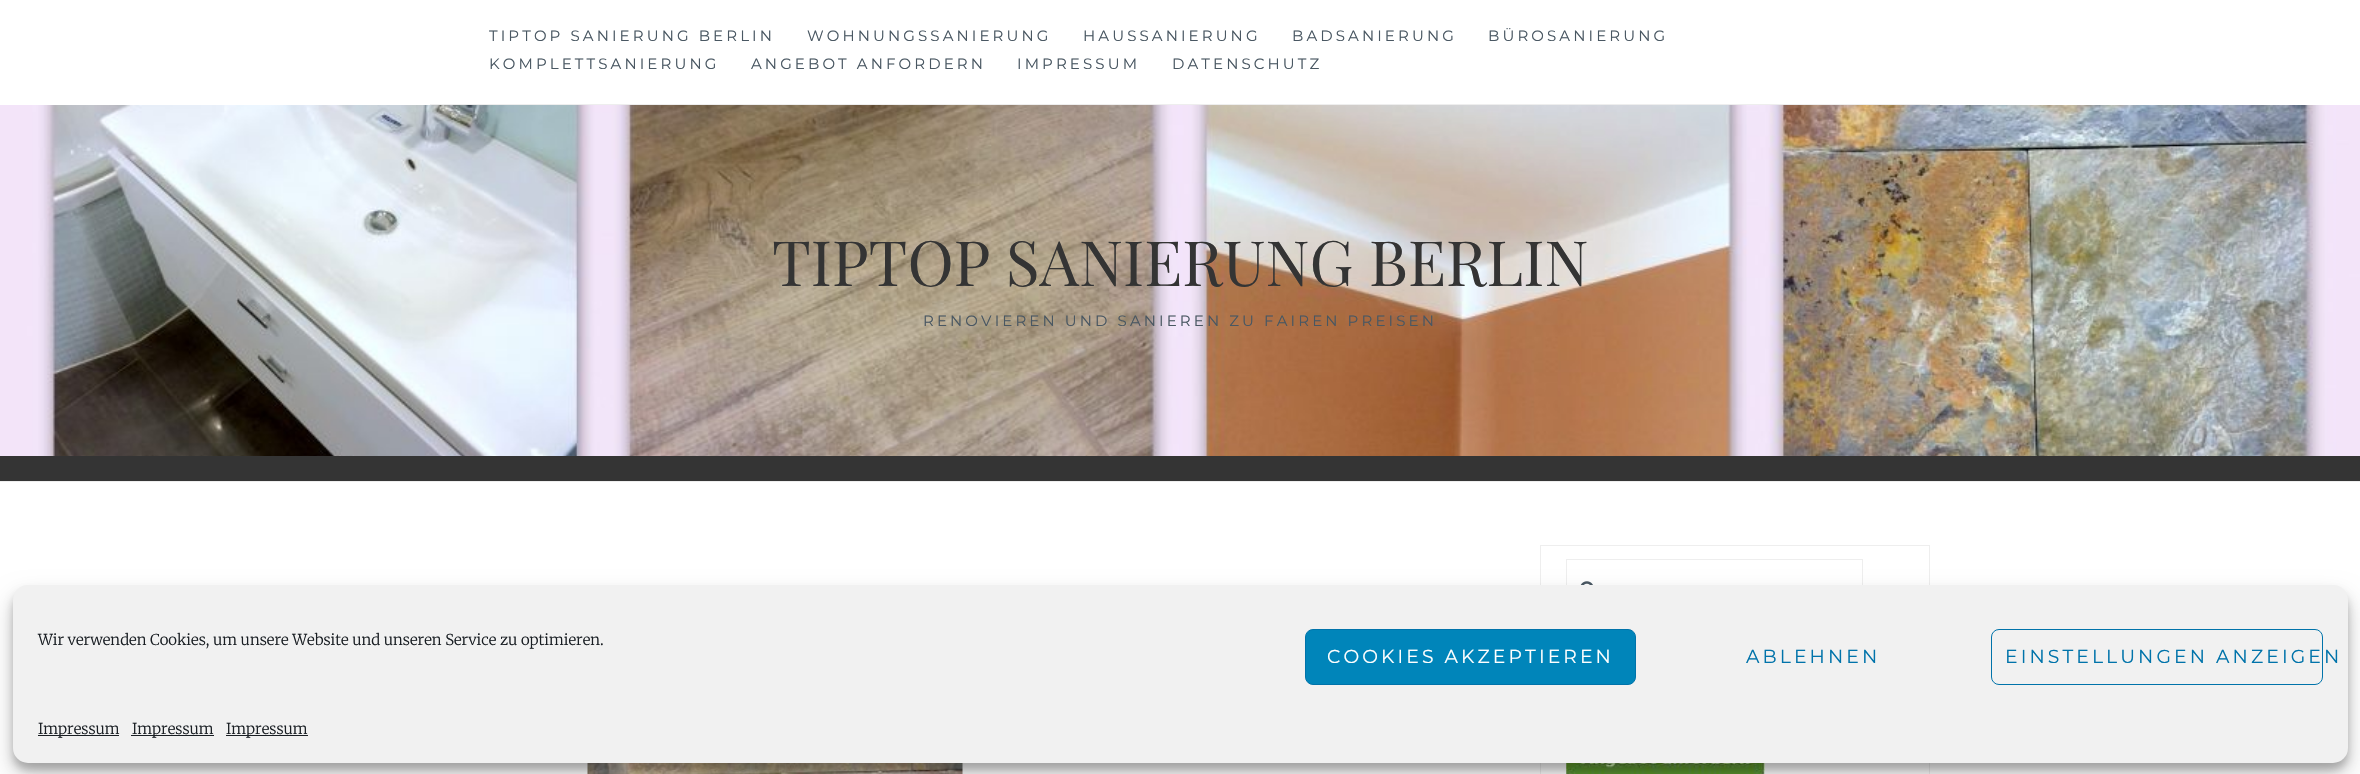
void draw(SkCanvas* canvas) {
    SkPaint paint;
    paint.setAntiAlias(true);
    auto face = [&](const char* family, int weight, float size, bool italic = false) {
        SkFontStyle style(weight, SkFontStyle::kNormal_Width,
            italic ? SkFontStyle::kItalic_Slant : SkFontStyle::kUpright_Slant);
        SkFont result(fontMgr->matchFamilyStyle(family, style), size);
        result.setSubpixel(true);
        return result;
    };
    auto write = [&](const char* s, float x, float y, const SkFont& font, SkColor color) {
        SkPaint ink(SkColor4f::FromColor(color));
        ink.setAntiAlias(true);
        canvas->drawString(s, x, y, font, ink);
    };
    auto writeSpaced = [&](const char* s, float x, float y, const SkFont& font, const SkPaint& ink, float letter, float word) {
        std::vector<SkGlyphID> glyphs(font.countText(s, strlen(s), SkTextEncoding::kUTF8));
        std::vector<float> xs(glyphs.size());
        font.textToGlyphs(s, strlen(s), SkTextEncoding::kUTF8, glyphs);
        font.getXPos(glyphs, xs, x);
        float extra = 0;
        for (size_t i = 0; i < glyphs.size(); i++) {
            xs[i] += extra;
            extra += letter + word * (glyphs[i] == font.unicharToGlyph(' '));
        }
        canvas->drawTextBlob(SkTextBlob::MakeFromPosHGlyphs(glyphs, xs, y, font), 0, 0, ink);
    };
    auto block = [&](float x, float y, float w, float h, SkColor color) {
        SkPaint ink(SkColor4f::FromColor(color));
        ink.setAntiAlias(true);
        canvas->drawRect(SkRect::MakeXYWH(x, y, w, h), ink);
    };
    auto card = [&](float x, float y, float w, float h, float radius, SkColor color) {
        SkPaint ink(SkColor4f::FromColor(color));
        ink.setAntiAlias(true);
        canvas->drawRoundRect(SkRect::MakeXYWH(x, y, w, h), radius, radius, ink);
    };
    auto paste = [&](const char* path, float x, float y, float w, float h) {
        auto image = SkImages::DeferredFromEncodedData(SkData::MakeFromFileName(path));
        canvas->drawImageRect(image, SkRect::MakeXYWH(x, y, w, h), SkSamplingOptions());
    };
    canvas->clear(SK_ColorWHITE);
    block(430, 104, 1500, 1, SkColorSetRGB(238, 238, 238));
    auto kFont1 = face("Montserrat", 400, 15);
    paint.setColor(SkColorSetRGB(73, 87, 98));
    writeSpaced("TIPTOP SANIERUNG BERLIN", 489, 41, kFont1, paint, 3.1f, 0);
    writeSpaced("WOHNUNGSSANIERUNG", 807, 41, kFont1, paint, 3.1f, 0);
    writeSpaced("HAUSSANIERUNG", 1083, 41, kFont1, paint, 3.1f, 0);
    writeSpaced("BADSANIERUNG", 1292, 41, kFont1, paint, 3.1f, 0);
    writeSpaced("BÜROSANIERUNG", 1488, 41, kFont1, paint, 3.1f, 0);
    writeSpaced("KOMPLETTSANIERUNG", 489, 69, kFont1, paint, 3.1f, 0);
    writeSpaced("ANGEBOT ANFORDERN", 751, 69, kFont1, paint, 3.1f, 0);
    writeSpaced("IMPRESSUM", 1017, 69, kFont1, paint, 3.1f, 0);
    writeSpaced("DATENSCHUTZ", 1172, 69, kFont1, paint, 3.1f, 0);
    block(0, 456, 2360, 25, SkColorSetRGB(52, 52, 52));
    paste("pic1.png", 0, 105, 2360, 351);
    auto kFont2 = face("Playfair Display", 400, 62.5f);
    write("TIPTOP SANIERUNG BERLIN", 772, 286, kFont2, SkColorSetRGB(52, 52, 52));
    writeSpaced("RENOVIEREN UND SANIEREN ZU FAIREN PREISEN", 923, 326, kFont1, paint, 3.1f, 0);
    block(0, 481, 2360, 1, SkColorSetRGB(238, 238, 238));
    paste("pic2.png", 587, 763, 376, 11);
    paint.setStyle(SkPaint::kStroke_Style);
    paint.setStrokeWidth(1);
    paint.setColor(SkColorSetRGB(238, 238, 238));
    canvas->drawRect(SkRect::MakeXYWH(1540.5f, 545.5f, 389, 107), paint);
    canvas->drawRect(SkRect::MakeXYWH(1566.5f, 559.5f, 296, 66), paint);
    paste("pic3.png", 1580, 581, 13, 4);
    canvas->drawRect(SkRect::MakeXYWH(1540.5f, 704.5f, 389, 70), paint);
    paste("pic4.png", 1566, 763, 199, 11);
    paint.setStyle(SkPaint::kFill_Style);
    paint.setColor(SkColorSetARGB(59, 0, 0, 0));
    paint.setMaskFilter(SkMaskFilter::MakeBlur(kNormal_SkBlurStyle, 4));
    canvas->drawRoundRect(SkRect::MakeXYWH(13, 593, 2335, 177), 15, 15, paint);
    paint.setMaskFilter(nullptr);
    paint.setColor(SkColorSetARGB(48, 0, 0, 0));
    paint.setMaskFilter(SkMaskFilter::MakeBlur(kNormal_SkBlurStyle, 12.5f));
    canvas->drawRoundRect(SkRect::MakeXYWH(13, 598, 2335, 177), 15, 15, paint);
    paint.setMaskFilter(nullptr);
    card(13, 585, 2335, 178, 15, SkColorSetRGB(241, 241, 241));
    auto kFont3 = face("Merriweather", 300, 15);
    write("Wir verwenden Cookies, um unsere Website und unseren Service zu optimieren.", 38, 645, kFont3, SkColorSetRGB(25, 30, 35));
    paint.setColor(SkColorSetRGB(0, 133, 186));
    canvas->drawRoundRect(SkRect::MakeXYWH(1305.5f, 629.5f, 330, 55), 7.5f, 7.5f, paint);
    paint.setStyle(SkPaint::kStroke_Style);
    paint.setColor(SkColorSetRGB(0, 115, 170));
    canvas->drawRoundRect(SkRect::MakeXYWH(1305.5f, 629.5f, 330, 55), 7.5f, 7.5f, paint);
    auto kFont4 = face("Montserrat", 400, 18.75f);
    paint.setStyle(SkPaint::kFill_Style);
    paint.setColor(SK_ColorWHITE);
    writeSpaced("COOKIES AKZEPTIEREN", 1327, 663, kFont4, paint, 3.1f, 0);
    paint.setColor(SkColorSetRGB(0, 115, 170));
    writeSpaced("ABLEHNEN", 1746, 663, kFont4, paint, 3.1f, 0);
    paint.setStyle(SkPaint::kStroke_Style);
    canvas->drawRoundRect(SkRect::MakeXYWH(1991.5f, 629.5f, 331, 55), 7.5f, 7.5f, paint);
    paint.setStyle(SkPaint::kFill_Style);
    writeSpaced("EINSTELLUNGEN ANZEIGEN", 2005, 663, kFont4, paint, 3.1f, 0);
    block(38, 735, 81, 1, SkColorSetRGB(25, 30, 35));
    write("Impressum", 38, 734, kFont3, SkColorSetRGB(25, 30, 35));
    block(131, 735, 83, 1, SkColorSetRGB(25, 30, 35));
    write("Impressum", 132, 734, kFont3, SkColorSetRGB(25, 30, 35));
    block(226, 735, 82, 1, SkColorSetRGB(25, 30, 35));
    write("Impressum", 226, 734, kFont3, SkColorSetRGB(25, 30, 35));
}
